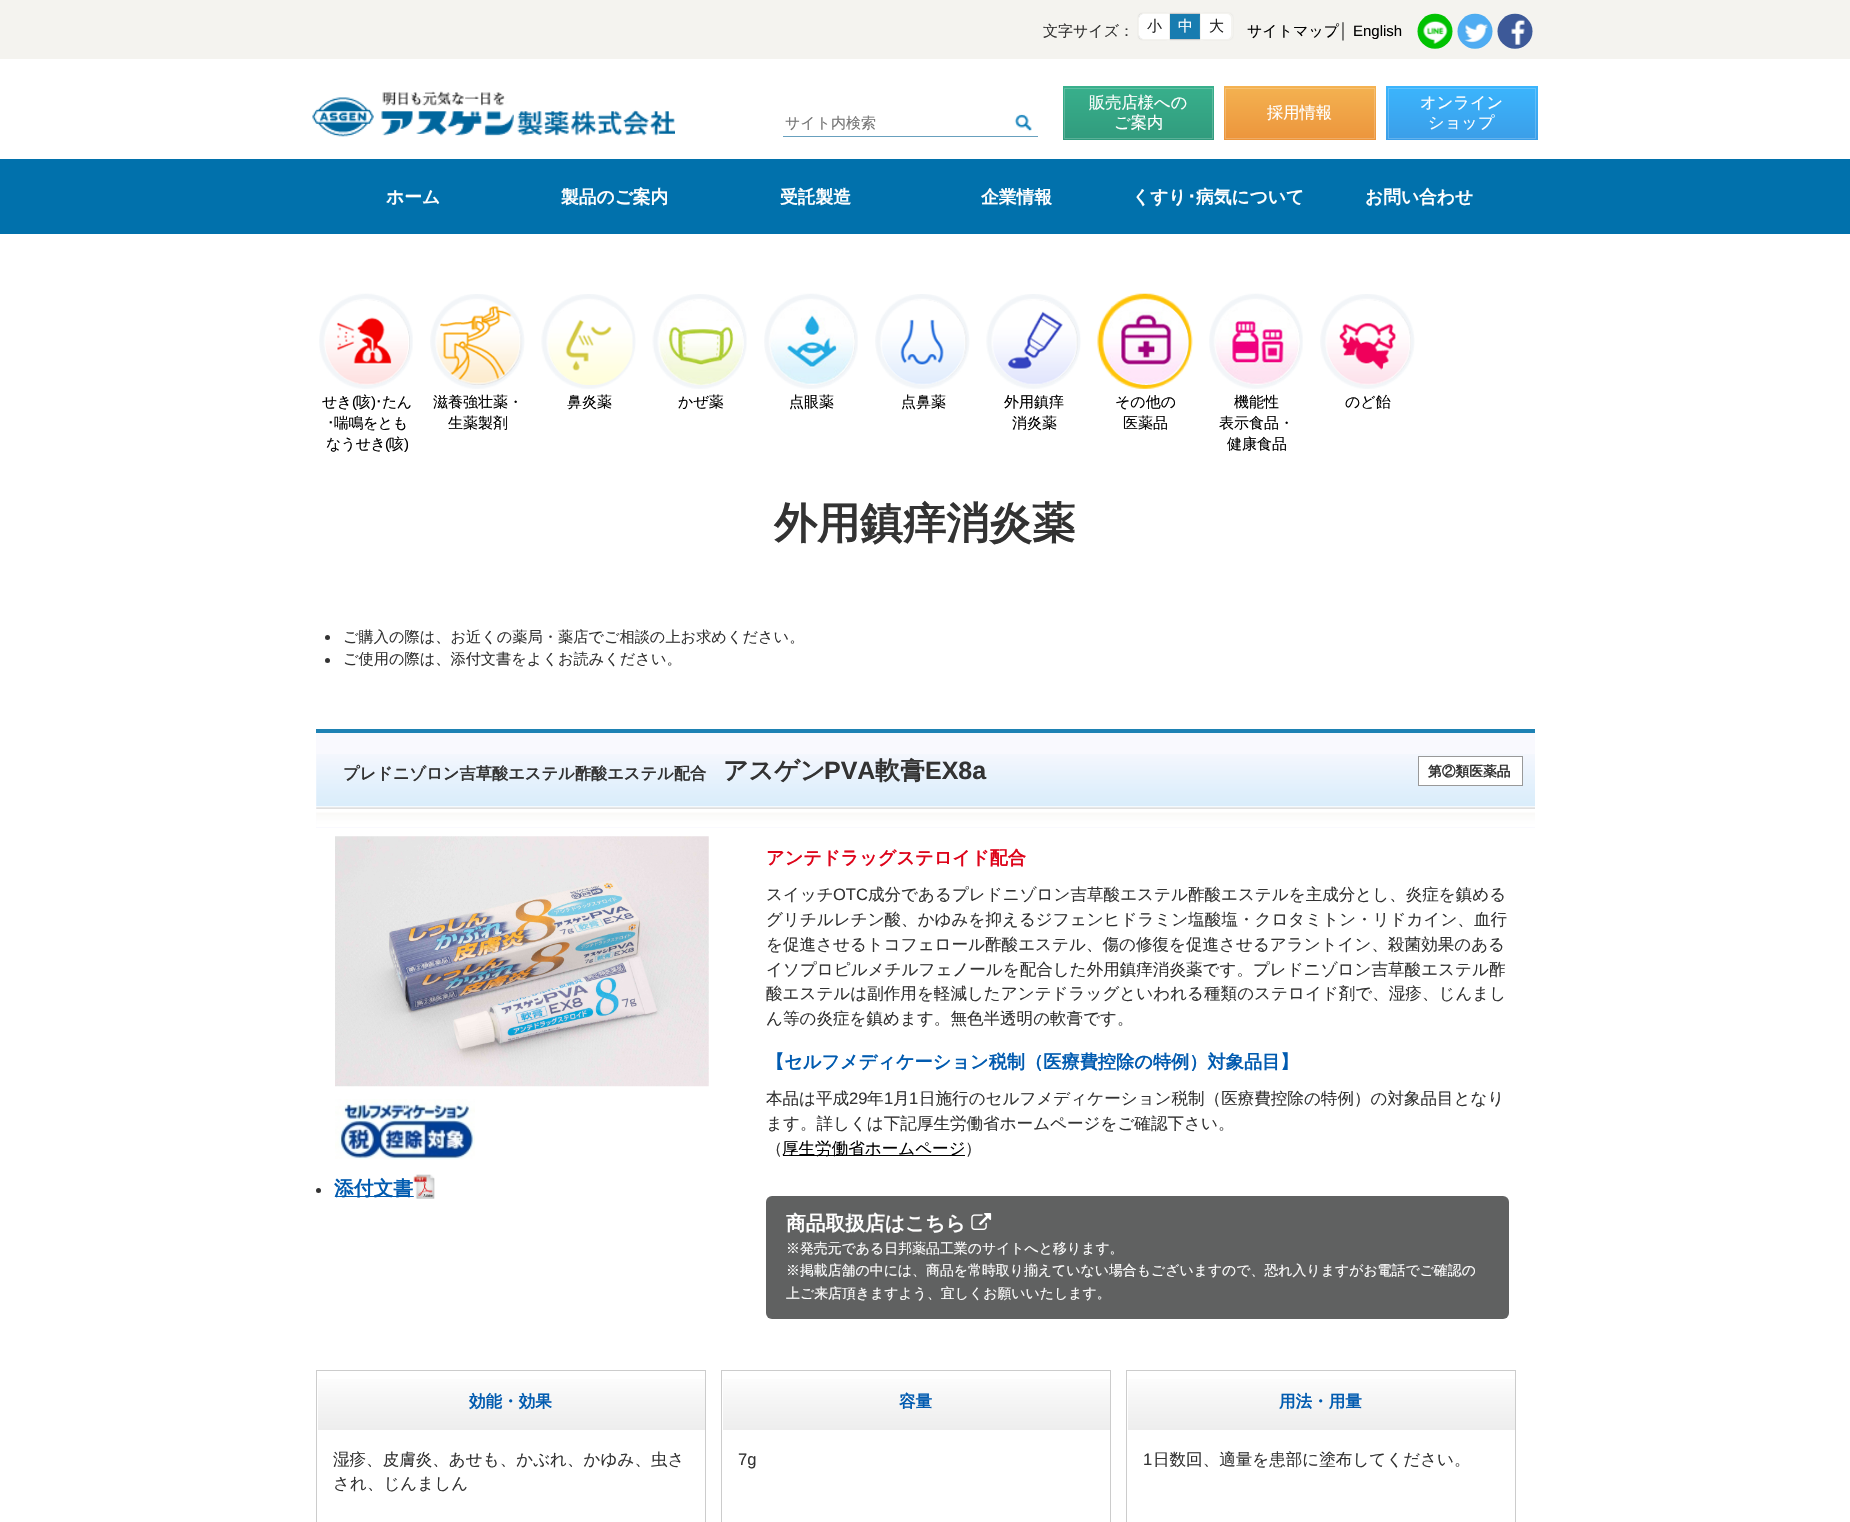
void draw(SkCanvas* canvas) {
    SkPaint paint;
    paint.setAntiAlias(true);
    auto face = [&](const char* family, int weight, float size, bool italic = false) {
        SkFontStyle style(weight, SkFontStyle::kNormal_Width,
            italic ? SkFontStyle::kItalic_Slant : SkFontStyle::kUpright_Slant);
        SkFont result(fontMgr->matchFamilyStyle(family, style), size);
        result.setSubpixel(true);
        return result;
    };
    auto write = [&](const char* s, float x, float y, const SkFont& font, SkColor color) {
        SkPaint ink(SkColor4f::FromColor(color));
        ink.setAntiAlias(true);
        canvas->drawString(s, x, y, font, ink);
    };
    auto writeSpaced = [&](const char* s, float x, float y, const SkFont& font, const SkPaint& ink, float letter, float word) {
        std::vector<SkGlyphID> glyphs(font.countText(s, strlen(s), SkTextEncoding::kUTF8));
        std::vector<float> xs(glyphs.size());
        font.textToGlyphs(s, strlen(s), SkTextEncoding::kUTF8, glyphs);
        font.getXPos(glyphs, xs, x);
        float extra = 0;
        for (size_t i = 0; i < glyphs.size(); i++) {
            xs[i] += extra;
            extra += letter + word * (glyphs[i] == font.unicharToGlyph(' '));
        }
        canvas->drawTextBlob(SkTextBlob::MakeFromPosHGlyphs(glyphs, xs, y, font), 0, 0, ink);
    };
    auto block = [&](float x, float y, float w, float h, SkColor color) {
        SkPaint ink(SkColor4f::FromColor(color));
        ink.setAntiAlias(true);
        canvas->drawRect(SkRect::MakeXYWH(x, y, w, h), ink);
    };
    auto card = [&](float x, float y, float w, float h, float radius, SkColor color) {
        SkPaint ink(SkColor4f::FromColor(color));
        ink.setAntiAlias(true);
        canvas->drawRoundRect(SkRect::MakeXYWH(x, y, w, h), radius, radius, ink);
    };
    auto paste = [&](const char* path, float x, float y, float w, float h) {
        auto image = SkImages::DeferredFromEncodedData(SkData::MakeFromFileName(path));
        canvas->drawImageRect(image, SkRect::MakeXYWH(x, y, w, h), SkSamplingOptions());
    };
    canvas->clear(SK_ColorWHITE);
    block(0, 0, 1850, 59, SkColorSetRGB(244, 243, 239));
    auto kFont1 = face("WenQuanYi Zen Hei", 500, 15);
    write("文字サイズ：", 1043, 36, kFont1, SkColorSetRGB(51, 51, 51));
    paint.setColor(SkColorSetRGB(204, 204, 204));
    paint.setMaskFilter(SkMaskFilter::MakeBlur(kNormal_SkBlurStyle, 0.5f));
    canvas->drawRoundRect(SkRect::MakeXYWH(1138, 13, 32, 27), 5, 5, paint);
    paint.setMaskFilter(nullptr);
    paint.setStyle(SkPaint::kStroke_Style);
    paint.setStrokeWidth(1);
    paint.setColor(SkColorSetRGB(244, 243, 239));
    canvas->drawPath(SkPathBuilder().moveTo(1143, 13.5f).lineTo(1169.5f, 13.5f).lineTo(1169.5f, 39.5f).lineTo(1143, 39.5f).cubicTo(1140.5f, 39.5f, 1138.5f, 37.5f, 1138.5f, 35).lineTo(1138.5f, 18).cubicTo(1138.5f, 15.5f, 1140.5f, 13.5f, 1143, 13.5f).close().detach(), paint);
    paint.setStyle(SkPaint::kFill_Style);
    paint.setColor(SK_ColorWHITE);
    canvas->drawPath(SkPathBuilder().moveTo(1143, 14).lineTo(1169, 14).lineTo(1169, 39).lineTo(1143, 39).cubicTo(1141, 39, 1139, 37, 1139, 35).lineTo(1139, 18).cubicTo(1139, 16, 1141, 14, 1143, 14).close().detach(), paint);
    write("小", 1147, 31, kFont1, SkColorSetRGB(34, 34, 34));
    paint.setColor(SkColorSetRGB(204, 204, 204));
    paint.setMaskFilter(SkMaskFilter::MakeBlur(kNormal_SkBlurStyle, 0.5f));
    canvas->drawRect(SkRect::MakeXYWH(1170, 13, 30, 27), paint);
    paint.setMaskFilter(nullptr);
    block(1170, 14, 30, 25, SkColorSetRGB(24, 124, 176));
    write("中", 1178, 31, kFont1, SK_ColorWHITE);
    canvas->save();
    canvas->clipPath(SkPathBuilder(SkPathFillType::kEvenOdd).moveTo(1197, 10).lineTo(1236, 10).lineTo(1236, 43).lineTo(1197, 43).close().moveTo(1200, 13).lineTo(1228, 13).cubicTo(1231, 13, 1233, 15, 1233, 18).lineTo(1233, 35).cubicTo(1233, 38, 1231, 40, 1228, 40).lineTo(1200, 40).close().detach(), true);
    paint.setMaskFilter(SkMaskFilter::MakeBlur(kNormal_SkBlurStyle, 0.5f));
    canvas->drawRoundRect(SkRect::MakeXYWH(1200, 13, 33, 27), 5, 5, paint);
    paint.setMaskFilter(nullptr);
    canvas->restore();
    paint.setStyle(SkPaint::kStroke_Style);
    paint.setColor(SkColorSetRGB(244, 243, 239));
    canvas->drawPath(SkPathBuilder().moveTo(1200.5f, 13.5f).lineTo(1228, 13.5f).cubicTo(1230.5f, 13.5f, 1232.5f, 15.5f, 1232.5f, 18).lineTo(1232.5f, 35).cubicTo(1232.5f, 37.5f, 1230.5f, 39.5f, 1228, 39.5f).lineTo(1200.5f, 39.5f).close().detach(), paint);
    paint.setStyle(SkPaint::kFill_Style);
    paint.setColor(SK_ColorWHITE);
    canvas->drawPath(SkPathBuilder().moveTo(1201, 14).lineTo(1227, 14).cubicTo(1229, 14, 1231, 16, 1231, 18).lineTo(1231, 35).cubicTo(1231, 37, 1229, 39, 1227, 39).lineTo(1201, 39).close().detach(), paint);
    write("大", 1209, 31, kFont1, SkColorSetRGB(34, 34, 34));
    write("サイトマップ", 1247, 36, kFont1, SK_ColorBLACK);
    auto kFont2 = face("Liberation Sans", 400, 15);
    write("│", 1339, 36, kFont2, SkColorSetRGB(51, 51, 51));
    write("English", 1353, 36, kFont2, SK_ColorBLACK);
    paste("pic1.png", 1417, 13, 36, 36);
    paste("pic2.png", 1457, 13, 36, 36);
    paste("pic3.png", 1497, 13, 36, 36);
    paste("pic4.png", 312, 91, 363, 46);
    paste("pic5.png", 1014, 114, 18, 18);
    block(783, 136, 255, 1, SkColorSetRGB(104, 160, 190));
    write("サイト内検索", 785, 128, kFont1, SkColorSetRGB(117, 117, 117));
    {
        const SkColor colors[] = {SkColorSetRGB(56, 176, 140), SkColorSetRGB(49, 155, 125)};
        const float stops[] = {0, 1};
        const SkPoint ends[] = {{1138, 86}, {1138, 140}};
        paint.setShader(SkGradientShader::MakeLinear(ends, colors, stops, 2, SkTileMode::kClamp));
        paint.setAlpha(255);
    }
    canvas->drawRect(SkRect::MakeXYWH(1063, 86, 151, 54), paint);
    paint.setStyle(SkPaint::kStroke_Style);
    paint.setShader(nullptr);
    paint.setColor(SkColorSetARGB(51, 255, 255, 255));
    canvas->drawRect(SkRect::MakeXYWH(1064.5f, 88.5f, 148, 50), paint);
    auto kFont3 = face("WenQuanYi Zen Hei", 500, 16.25f);
    write("販売店様への", 1089, 108, kFont3, SK_ColorWHITE);
    write("ご案内", 1114, 128, kFont3, SK_ColorWHITE);
    paint.setStyle(SkPaint::kFill_Style);
    {
        const SkColor colors[] = {SkColorSetRGB(244, 178, 81), SkColorSetRGB(236, 149, 60)};
        const float stops[] = {0, 1};
        const SkPoint ends[] = {{1300, 86}, {1300, 140}};
        paint.setShader(SkGradientShader::MakeLinear(ends, colors, stops, 2, SkTileMode::kClamp));
        paint.setAlpha(255);
    }
    canvas->drawRect(SkRect::MakeXYWH(1224, 86, 152, 54), paint);
    paint.setStyle(SkPaint::kStroke_Style);
    paint.setShader(nullptr);
    paint.setColor(SkColorSetARGB(51, 255, 255, 255));
    canvas->drawRect(SkRect::MakeXYWH(1225.5f, 88.5f, 149, 50), paint);
    write("採用情報", 1267, 118, kFont3, SK_ColorWHITE);
    paint.setStyle(SkPaint::kFill_Style);
    {
        const SkColor colors[] = {SkColorSetRGB(59, 181, 253), SkColorSetRGB(59, 158, 232)};
        const float stops[] = {0, 1};
        const SkPoint ends[] = {{1462, 86}, {1462, 140}};
        paint.setShader(SkGradientShader::MakeLinear(ends, colors, stops, 2, SkTileMode::kClamp));
        paint.setAlpha(255);
    }
    canvas->drawRect(SkRect::MakeXYWH(1386, 86, 152, 54), paint);
    paint.setStyle(SkPaint::kStroke_Style);
    paint.setShader(nullptr);
    paint.setColor(SkColorSetARGB(51, 255, 255, 255));
    canvas->drawRect(SkRect::MakeXYWH(1388.5f, 88.5f, 147, 50), paint);
    write("オンライン", 1420, 108, kFont3, SK_ColorWHITE);
    write("ショップ", 1428, 128, kFont3, SK_ColorWHITE);
    block(0, 159, 1850, 75, SkColorSetRGB(1, 113, 172));
    auto kFont4 = face("WenQuanYi Zen Hei", 700, 17.75f);
    write("ホーム", 386, 203, kFont4, SK_ColorWHITE);
    write("製品のご案内", 561, 203, kFont4, SK_ColorWHITE);
    write("受託製造", 780, 203, kFont4, SK_ColorWHITE);
    write("企業情報", 981, 203, kFont4, SK_ColorWHITE);
    write("くすり", 1132, 203, kFont4, SK_ColorWHITE);
    auto kFont5 = face("IPAPGothic", 700, 17.75f);
    write("･", 1187, 203, kFont5, SK_ColorWHITE);
    write("病気について", 1196, 203, kFont4, SK_ColorWHITE);
    write("お問い合わせ", 1365, 203, kFont4, SK_ColorWHITE);
    paste("pic6.png", 319, 293, 94, 96);
    paste("pic7.png", 325, 300, 85, 85);
    paint.setStyle(SkPaint::kFill_Style);
    paint.setColor(SK_ColorBLACK);
    writeSpaced("せき", 322, 407, kFont1, paint, -0.5f, 0);
    writeSpaced("(", 352, 407, kFont2, paint, -0.5f, 0);
    writeSpaced("咳", 356, 407, kFont1, paint, -0.5f, 0);
    writeSpaced(")", 371, 407, kFont2, paint, -0.5f, 0);
    auto kFont6 = face("IPAPGothic", 400, 15);
    writeSpaced("･", 375, 407, kFont6, paint, -0.5f, 0);
    writeSpaced("たん", 382, 407, kFont1, paint, -0.5f, 0);
    writeSpaced("･", 327, 428, kFont6, paint, -0.5f, 0);
    writeSpaced("喘鳴をとも", 334, 428, kFont1, paint, -0.5f, 0);
    writeSpaced("なうせき", 326, 449, kFont1, paint, -0.5f, 0);
    writeSpaced("(", 385, 449, kFont2, paint, -0.5f, 0);
    writeSpaced("咳", 389, 449, kFont1, paint, -0.5f, 0);
    writeSpaced(")", 404, 449, kFont2, paint, -0.5f, 0);
    paste("pic8.png", 430, 294, 95, 95);
    paste("pic9.png", 436, 306, 86, 79);
    write("滋養強壮薬・", 433, 407, kFont1, SK_ColorBLACK);
    write("生薬製剤", 448, 428, kFont1, SK_ColorBLACK);
    paste("pic10.png", 541, 294, 95, 95);
    paste("pic11.png", 548, 307, 85, 78);
    write("鼻炎薬", 567, 407, kFont1, SK_ColorBLACK);
    paste("pic12.png", 652, 294, 95, 95);
    paste("pic13.png", 659, 300, 85, 85);
    write("かぜ薬", 678, 407, kFont1, SK_ColorBLACK);
    paste("pic6.png", 764, 293, 94, 96);
    paste("pic14.png", 770, 307, 85, 78);
    write("点眼薬", 789, 407, kFont1, SK_ColorBLACK);
    paste("pic15.png", 875, 294, 95, 95);
    paste("pic16.png", 882, 300, 85, 85);
    write("点鼻薬", 901, 407, kFont1, SK_ColorBLACK);
    paste("pic10.png", 986, 294, 95, 95);
    paste("pic17.png", 993, 300, 85, 85);
    write("外用鎮痒", 1004, 407, kFont1, SK_ColorBLACK);
    write("消炎薬", 1012, 428, kFont1, SK_ColorBLACK);
    paste("pic18.png", 1097, 293, 96, 96);
    paste("pic19.png", 1103, 300, 86, 85);
    write("その他の", 1115, 407, kFont1, SK_ColorBLACK);
    write("医薬品", 1123, 428, kFont1, SK_ColorBLACK);
    paste("pic6.png", 1209, 293, 94, 96);
    paste("pic20.png", 1215, 307, 85, 78);
    write("機能性", 1234, 407, kFont1, SK_ColorBLACK);
    write("表示食品・", 1219, 428, kFont1, SK_ColorBLACK);
    write("健康食品", 1227, 449, kFont1, SK_ColorBLACK);
    paste("pic15.png", 1320, 294, 95, 95);
    paste("pic21.png", 1326, 300, 85, 85);
    write("のど飴", 1345, 407, kFont1, SK_ColorBLACK);
    auto kFont7 = face("WenQuanYi Zen Hei", 700, 43);
    write("外用鎮痒消炎薬", 774, 538, kFont7, SkColorSetRGB(51, 51, 51));
    paint.setColor(SkColorSetRGB(51, 51, 51));
    canvas->drawCircle(327.5f, 637.5f, 2.5f, paint);
    auto kFont8 = face("WenQuanYi Zen Hei", 500, 15.2f);
    write("ご購入の際は、お近くの薬局・薬店でご相談の上お求めください。", 343, 642, kFont8, SkColorSetRGB(51, 51, 51));
    canvas->drawCircle(327.5f, 660.5f, 2.5f, paint);
    write("ご使用の際は、添付文書をよくお読みください。", 343, 664, kFont8, SkColorSetRGB(51, 51, 51));
    block(316, 733, 1219, 95, SkColorSetRGB(249, 249, 254));
    paste("pic22.png", 316, 754, 1219, 73);
    block(316, 729, 1219, 4, SkColorSetRGB(30, 130, 180));
    auto kFont9 = face("WenQuanYi Zen Hei", 700, 16.25f);
    write("プレドニゾロン吉草酸エステル酢酸エステル配合", 343, 779, kFont9, SkColorSetRGB(51, 51, 51));
    auto kFont10 = face("WenQuanYi Zen Hei", 700, 25);
    write("アスゲン", 723, 779, kFont10, SkColorSetRGB(51, 51, 51));
    auto kFont11 = face("Liberation Sans", 700, 25);
    write("PVA", 824, 779, kFont11, SkColorSetRGB(51, 51, 51));
    write("軟膏", 875, 779, kFont10, SkColorSetRGB(51, 51, 51));
    write("EX8a", 925, 779, kFont11, SkColorSetRGB(51, 51, 51));
    paint.setColor(SK_ColorWHITE);
    canvas->drawRect(SkRect::MakeXYWH(1418.5f, 756.5f, 104, 29), paint);
    paint.setStyle(SkPaint::kStroke_Style);
    paint.setColor(SkColorSetRGB(153, 153, 153));
    canvas->drawRect(SkRect::MakeXYWH(1418.5f, 756.5f, 104, 29), paint);
    auto kFont12 = face("WenQuanYi Zen Hei", 700, 13.75f);
    write("第②類医薬品", 1428, 776, kFont12, SkColorSetRGB(51, 51, 51));
    paste("pic23.png", 335, 836, 374, 251);
    paste("pic24.png", 335, 1099, 140, 61);
    paint.setStyle(SkPaint::kFill_Style);
    paint.setColor(SkColorSetRGB(51, 51, 51));
    canvas->drawCircle(318.5f, 1190.5f, 2.5f, paint);
    block(335, 1196, 79, 1, SkColorSetRGB(1, 91, 176));
    auto kFont13 = face("WenQuanYi Zen Hei", 700, 19.75f);
    write("添付文書", 334, 1195, kFont13, SkColorSetRGB(1, 91, 176));
    paste("pic25.png", 413, 1174, 22, 25);
    auto kFont14 = face("WenQuanYi Zen Hei", 700, 18.2f);
    write("アンテドラッグステロイド配合", 766, 864, kFont14, SkColorSetRGB(222, 5, 27));
    auto kFont15 = face("WenQuanYi Zen Hei", 500, 16.55f);
    write("スイッチ", 766, 900, kFont15, SkColorSetRGB(51, 51, 51));
    auto kFont16 = face("Liberation Sans", 400, 16.55f);
    write("OTC", 833, 900, kFont16, SkColorSetRGB(51, 51, 51));
    write("成分であるプレドニゾロン吉草酸エステル酢酸エステルを主成分とし、炎症を鎮める", 868, 900, kFont15, SkColorSetRGB(51, 51, 51));
    write("グリチルレチン酸、かゆみを抑えるジフェンヒドラミン塩酸塩・クロタミトン・リドカイン、血行", 766, 925, kFont15, SkColorSetRGB(51, 51, 51));
    write("を促進させるトコフェロール酢酸エステル、傷の修復を促進させるアラントイン、殺菌効果のある", 766, 950, kFont15, SkColorSetRGB(51, 51, 51));
    write("イソプロピルメチルフェノールを配合した外用鎮痒消炎薬です。プレドニゾロン吉草酸エステル酢", 766, 975, kFont15, SkColorSetRGB(51, 51, 51));
    write("酸エステルは副作用を軽減したアンテドラッグといわれる種類のステロイド剤で、湿疹、じんまし", 766, 999, kFont15, SkColorSetRGB(51, 51, 51));
    write("ん等の炎症を鎮めます。無色半透明の軟膏です。", 766, 1024, kFont15, SkColorSetRGB(51, 51, 51));
    write("【セルフメディケーション税制（医療費控除の特例）対象品目】", 766, 1068, kFont14, SkColorSetRGB(1, 91, 176));
    write("本品は平成", 766, 1104, kFont15, SkColorSetRGB(51, 51, 51));
    write("29", 849, 1104, kFont16, SkColorSetRGB(51, 51, 51));
    write("年", 867, 1104, kFont15, SkColorSetRGB(51, 51, 51));
    write("1", 884, 1104, kFont16, SkColorSetRGB(51, 51, 51));
    write("月", 893, 1104, kFont15, SkColorSetRGB(51, 51, 51));
    write("1", 909, 1104, kFont16, SkColorSetRGB(51, 51, 51));
    write("日施行のセルフメディケーション税制（医療費控除の特例）の対象品目となり", 919, 1104, kFont15, SkColorSetRGB(51, 51, 51));
    write("ます。詳しくは下記厚生労働省ホームページをご確認下さい。", 766, 1129, kFont15, SkColorSetRGB(51, 51, 51));
    write("（", 766, 1154, kFont15, SkColorSetRGB(51, 51, 51));
    block(783, 1155, 182, 1, SK_ColorBLACK);
    write("厚生労働省ホームページ", 782, 1154, kFont15, SK_ColorBLACK);
    write("）", 965, 1154, kFont15, SkColorSetRGB(51, 51, 51));
    card(766, 1196, 743, 123, 6, SkColorSetRGB(96, 97, 97));
    write("商品取扱店はこちら", 786, 1230, kFont13, SK_ColorWHITE);
    paste("pic26.png", 971, 1213, 21, 17);
    auto kFont17 = face("WenQuanYi Zen Hei", 500, 13.9f);
    write("※発売元である日邦薬品工業のサイトへと移ります。", 786, 1253, kFont17, SK_ColorWHITE);
    write("※掲載店舗の中には、商品を常時取り揃えていない場合もございますので、恐れ入りますがお電話でご確認の", 786, 1275, kFont17, SK_ColorWHITE);
    write("上ご来店頂きますよう、宜しくお願いいたします。", 786, 1298, kFont17, SK_ColorWHITE);
    paint.setStyle(SkPaint::kStroke_Style);
    paint.setColor(SkColorSetRGB(204, 204, 204));
    canvas->drawRect(SkRect::MakeXYWH(316.5f, 1370.5f, 389, 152), paint);
    paint.setStyle(SkPaint::kFill_Style);
    {
        const SkColor colors[] = {SK_ColorWHITE, SkColorSetRGB(246, 246, 246), SkColorSetRGB(237, 237, 237)};
        const float stops[] = {0, 0.47f, 1};
        const SkPoint ends[] = {{511, 1371}, {511, 1430}};
        paint.setShader(SkGradientShader::MakeLinear(ends, colors, stops, 3, SkTileMode::kClamp));
        paint.setAlpha(255);
    }
    canvas->drawRect(SkRect::MakeXYWH(318, 1379, 387, 51), paint);
    auto kFont18 = face("WenQuanYi Zen Hei", 700, 16.55f);
    write("効能・効果", 469, 1407, kFont18, SkColorSetRGB(1, 91, 176));
    write("湿疹、皮膚炎、あせも、かぶれ、かゆみ、虫さ", 333, 1465, kFont15, SkColorSetRGB(51, 51, 51));
    write("され、じんましん", 333, 1489, kFont15, SkColorSetRGB(51, 51, 51));
    paint.setStyle(SkPaint::kStroke_Style);
    paint.setShader(nullptr);
    paint.setColor(SkColorSetRGB(204, 204, 204));
    canvas->drawRect(SkRect::MakeXYWH(721.5f, 1370.5f, 389, 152), paint);
    paint.setStyle(SkPaint::kFill_Style);
    {
        const SkColor colors[] = {SK_ColorWHITE, SkColorSetRGB(246, 246, 246), SkColorSetRGB(237, 237, 237)};
        const float stops[] = {0, 0.47f, 1};
        const SkPoint ends[] = {{916, 1371}, {916, 1430}};
        paint.setShader(SkGradientShader::MakeLinear(ends, colors, stops, 3, SkTileMode::kClamp));
        paint.setAlpha(255);
    }
    canvas->drawRect(SkRect::MakeXYWH(723, 1379, 387, 51), paint);
    write("容量", 899, 1407, kFont18, SkColorSetRGB(1, 91, 176));
    write("7g", 738, 1465, kFont16, SkColorSetRGB(51, 51, 51));
    paint.setStyle(SkPaint::kStroke_Style);
    paint.setShader(nullptr);
    paint.setColor(SkColorSetRGB(204, 204, 204));
    canvas->drawRect(SkRect::MakeXYWH(1126.5f, 1370.5f, 389, 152), paint);
    paint.setStyle(SkPaint::kFill_Style);
    {
        const SkColor colors[] = {SK_ColorWHITE, SkColorSetRGB(246, 246, 246), SkColorSetRGB(237, 237, 237)};
        const float stops[] = {0, 0.47f, 1};
        const SkPoint ends[] = {{1321, 1371}, {1321, 1430}};
        paint.setShader(SkGradientShader::MakeLinear(ends, colors, stops, 3, SkTileMode::kClamp));
        paint.setAlpha(255);
    }
    canvas->drawRect(SkRect::MakeXYWH(1128, 1379, 387, 51), paint);
    write("用法・用量", 1279, 1407, kFont18, SkColorSetRGB(1, 91, 176));
    write("1", 1143, 1465, kFont16, SkColorSetRGB(51, 51, 51));
    write("日数回、適量を患部に塗布してください。", 1153, 1465, kFont15, SkColorSetRGB(51, 51, 51));
}
